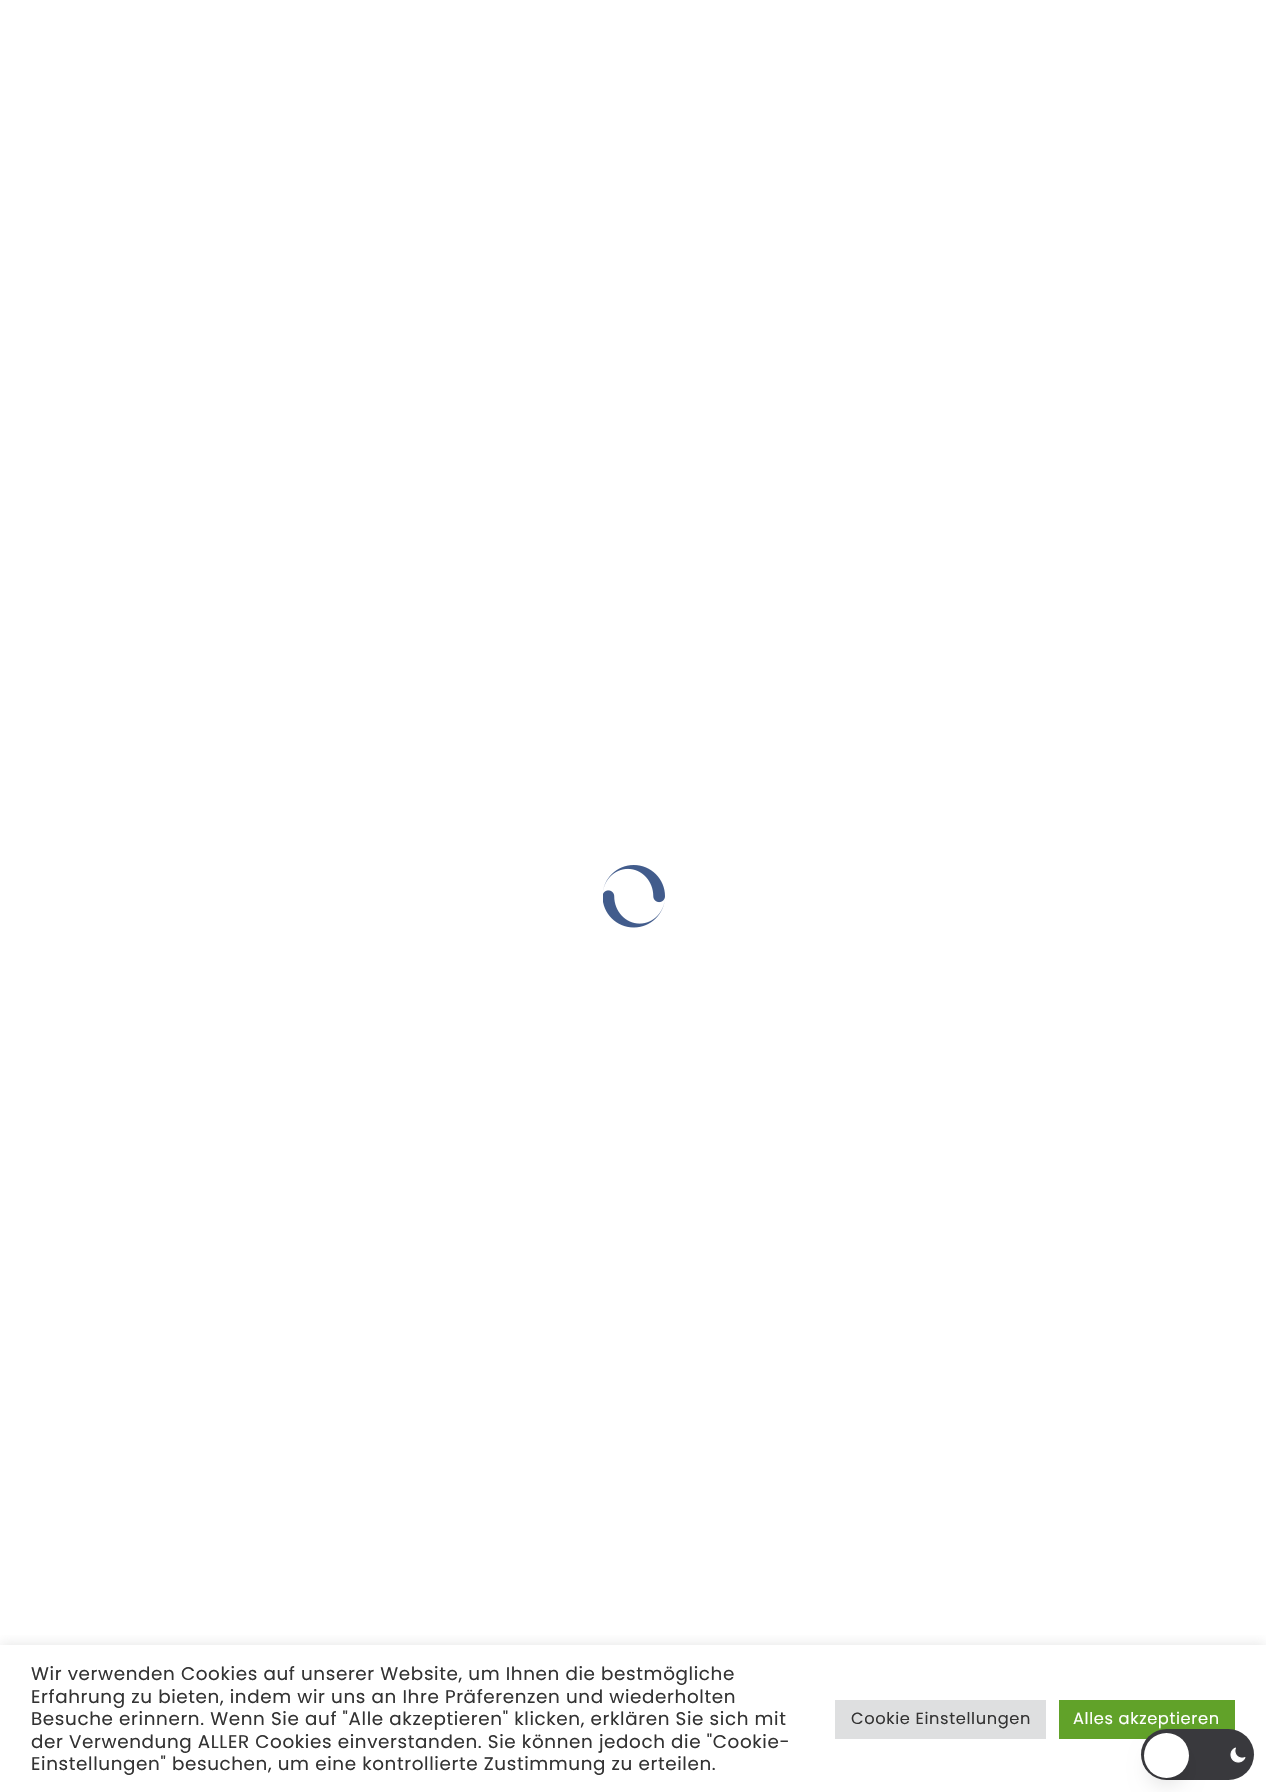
void draw(SkCanvas* canvas) {
    SkPaint paint;
    paint.setAntiAlias(true);
    auto face = [&](const char* family, int weight, float size, bool italic = false) {
        SkFontStyle style(weight, SkFontStyle::kNormal_Width,
            italic ? SkFontStyle::kItalic_Slant : SkFontStyle::kUpright_Slant);
        SkFont result(fontMgr->matchFamilyStyle(family, style), size);
        result.setSubpixel(true);
        return result;
    };
    auto writeSpaced = [&](const char* s, float x, float y, const SkFont& font, const SkPaint& ink, float letter, float word) {
        std::vector<SkGlyphID> glyphs(font.countText(s, strlen(s), SkTextEncoding::kUTF8));
        std::vector<float> xs(glyphs.size());
        font.textToGlyphs(s, strlen(s), SkTextEncoding::kUTF8, glyphs);
        font.getXPos(glyphs, xs, x);
        float extra = 0;
        for (size_t i = 0; i < glyphs.size(); i++) {
            xs[i] += extra;
            extra += letter + word * (glyphs[i] == font.unicharToGlyph(' '));
        }
        canvas->drawTextBlob(SkTextBlob::MakeFromPosHGlyphs(glyphs, xs, y, font), 0, 0, ink);
    };
    auto block = [&](float x, float y, float w, float h, SkColor color) {
        SkPaint ink(SkColor4f::FromColor(color));
        ink.setAntiAlias(true);
        canvas->drawRect(SkRect::MakeXYWH(x, y, w, h), ink);
    };
    auto card = [&](float x, float y, float w, float h, float radius, SkColor color) {
        SkPaint ink(SkColor4f::FromColor(color));
        ink.setAntiAlias(true);
        canvas->drawRoundRect(SkRect::MakeXYWH(x, y, w, h), radius, radius, ink);
    };
    auto paste = [&](const char* path, float x, float y, float w, float h) {
        auto image = SkImages::DeferredFromEncodedData(SkData::MakeFromFileName(path));
        canvas->drawImageRect(image, SkRect::MakeXYWH(x, y, w, h), SkSamplingOptions());
    };
    canvas->clear(SK_ColorWHITE);
    paste("pic1.png", 603, 865, 62, 63);
    canvas->save();
    canvas->clipRect(SkRect::MakeXYWH(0, 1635, 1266, 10));
    paint.setColor(SkColorSetARGB(77, 172, 171, 171));
    paint.setMaskFilter(SkMaskFilter::MakeBlur(kNormal_SkBlurStyle, 6));
    canvas->drawRect(SkRect::MakeXYWH(0, 1644, 1266, 147), paint);
    paint.setMaskFilter(nullptr);
    canvas->restore();
    auto kFont1 = face("Poppins", 400, 18.35f);
    paint.setColor(SkColorSetRGB(51, 51, 51));
    writeSpaced("Wir verwenden Cookies auf unserer Website, um Ihnen die bestmögliche", 31, 1680, kFont1, paint, 0.62f, 0);
    writeSpaced("Erfahrung zu bieten, indem wir uns an Ihre Präferenzen und wiederholten", 31, 1703, kFont1, paint, 0.62f, 0);
    writeSpaced("Besuche erinnern. Wenn Sie auf \"Alle akzeptieren\" klicken, erklären Sie sich mit", 31, 1725, kFont1, paint, 0.62f, 0);
    writeSpaced("der Verwendung ALLER Cookies einverstanden. Sie können jedoch die \"Cookie-", 31, 1748, kFont1, paint, 0.62f, 0);
    writeSpaced("Einstellungen\" besuchen, um eine kontrollierte Zustimmung zu erteilen.", 31, 1770, kFont1, paint, 0.62f, 0);
    block(835, 1700, 211, 39, SkColorSetRGB(222, 223, 224));
    auto kFont2 = face("Poppins", 400, 16.25f);
    writeSpaced("Cookie Einstellungen", 851, 1724, kFont2, paint, 0.62f, 0);
    block(1059, 1700, 176, 39, SkColorSetRGB(97, 162, 41));
    paint.setColor(SK_ColorWHITE);
    writeSpaced("Alles akzeptieren", 1073, 1724, kFont2, paint, 0.62f, 0);
    card(1141, 1729, 113, 51, 25.5f, SkColorSetRGB(57, 57, 61));
    paint.setColor(SkColorSetARGB(26, 0, 0, 0));
    paint.setMaskFilter(SkMaskFilter::MakeBlur(kNormal_SkBlurStyle, 9.5f));
    canvas->drawRoundRect(SkRect::MakeXYWH(1148, 1749, 37, 37), 18.5f, 18.5f, paint);
    paint.setMaskFilter(nullptr);
    paint.setColor(SK_ColorWHITE);
    canvas->drawCircle(1166.5f, 1755.5f, 22.5f, paint);
    paste("pic2.png", 1230, 1747, 16, 16);
}
